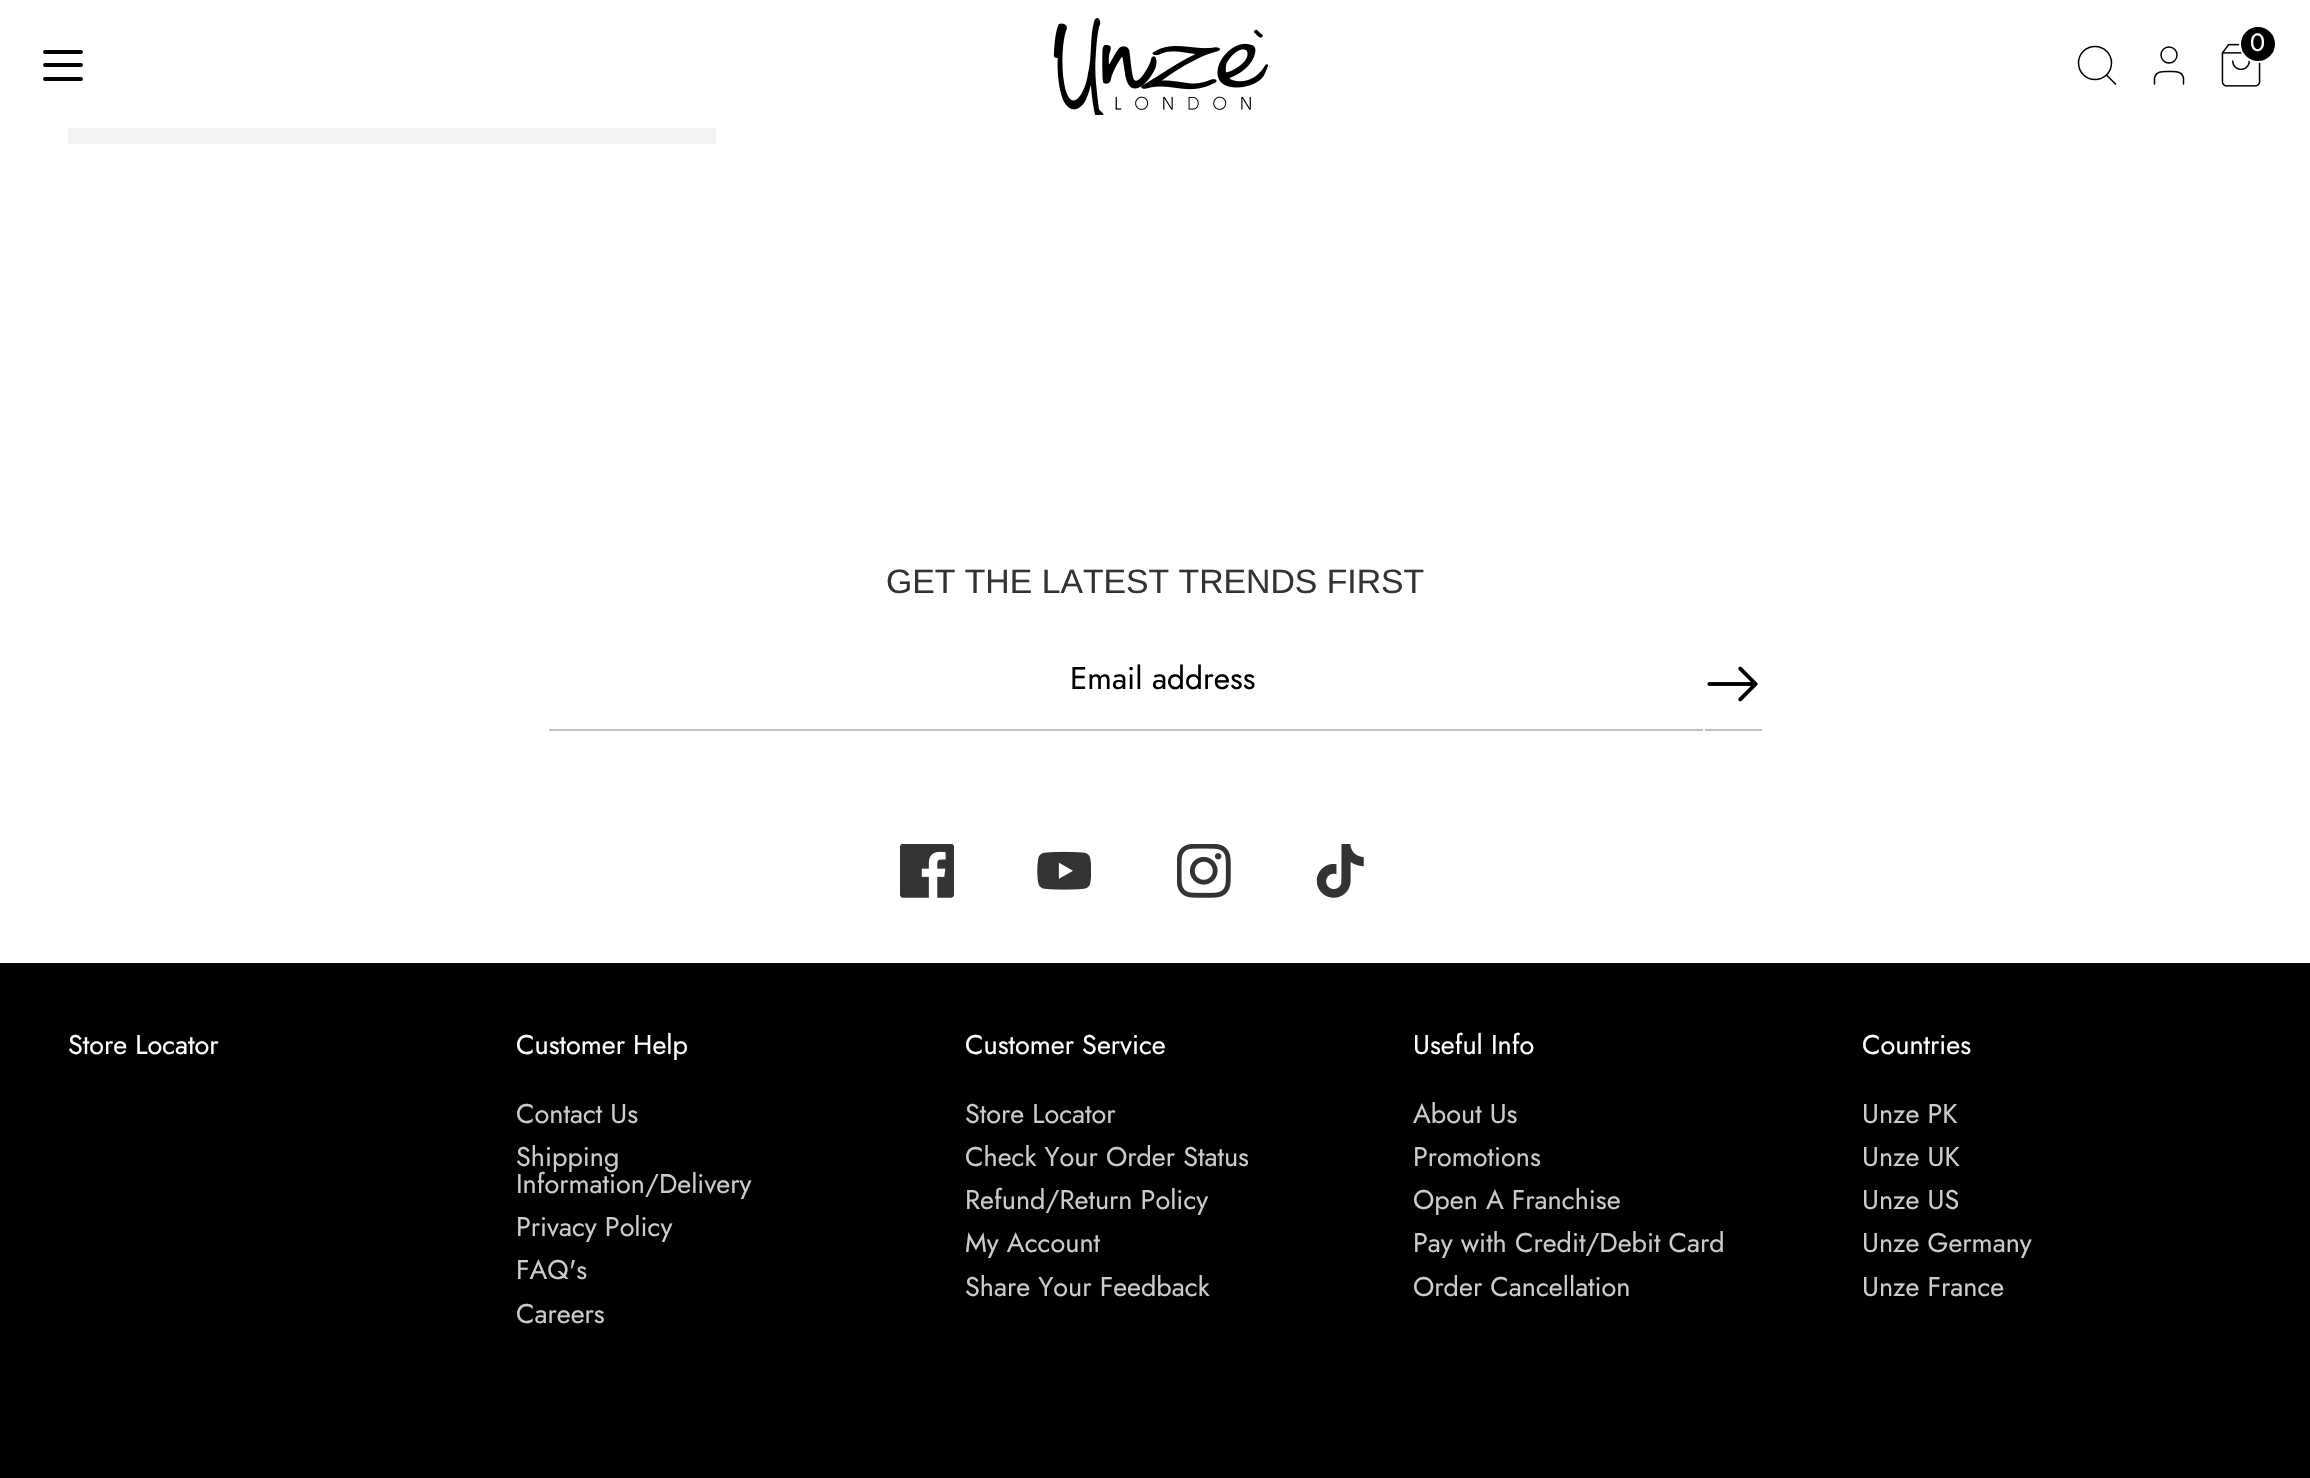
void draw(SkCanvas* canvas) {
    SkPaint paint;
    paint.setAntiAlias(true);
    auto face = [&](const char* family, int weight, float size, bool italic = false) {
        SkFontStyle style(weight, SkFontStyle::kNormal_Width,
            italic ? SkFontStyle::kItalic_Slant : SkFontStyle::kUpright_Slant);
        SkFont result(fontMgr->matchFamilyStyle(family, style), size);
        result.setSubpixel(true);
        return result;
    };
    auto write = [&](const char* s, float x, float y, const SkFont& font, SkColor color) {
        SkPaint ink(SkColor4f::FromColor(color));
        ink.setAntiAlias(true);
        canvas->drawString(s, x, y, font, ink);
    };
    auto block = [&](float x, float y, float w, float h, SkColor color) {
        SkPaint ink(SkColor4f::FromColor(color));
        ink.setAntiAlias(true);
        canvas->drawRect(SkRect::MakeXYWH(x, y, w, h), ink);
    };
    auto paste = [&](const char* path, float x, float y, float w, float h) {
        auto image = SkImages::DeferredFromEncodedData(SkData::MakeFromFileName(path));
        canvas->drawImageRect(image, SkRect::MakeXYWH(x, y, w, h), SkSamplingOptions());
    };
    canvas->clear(SK_ColorWHITE);
    paste("pic1.png", 1053, 18, 216, 97);
    paste("pic2.png", 2221, 43, 40, 44);
    paint.setColor(SK_ColorBLACK);
    canvas->drawCircle(2258, 44, 18, paint);
    paint.setStyle(SkPaint::kStroke_Style);
    paint.setStrokeWidth(2);
    paint.setColor(SK_ColorWHITE);
    canvas->drawCircle(2258, 44, 18, paint);
    auto kFont1 = face("Jost", 400, 25);
    write("0", 2250, 51, kFont1, SK_ColorWHITE);
    paint.setStrokeWidth(1.5f);
    paint.setColor(SK_ColorBLACK);
    canvas->drawCircle(2095, 63, 16.5f, paint);
    paint.setStrokeCap(SkPaint::kRound_Cap);
    paint.setStrokeJoin(SkPaint::kRound_Join);
    canvas->drawPath(SkPathBuilder().moveTo(2115.5f, 84).lineTo(2106.5f, 75).detach(), paint);
    canvas->drawPath(SkPathBuilder().moveTo(2183.5f, 84).lineTo(2183.5f, 78).cubicTo(2182, 70.5f, 2174.5f, 71.5f, 2169, 71.5f).cubicTo(2163.5f, 71.5f, 2156, 70.5f, 2154.5f, 78).lineTo(2154.5f, 84).detach(), paint);
    paint.setStrokeCap(SkPaint::kButt_Cap);
    paint.setStrokeJoin(SkPaint::kMiter_Join);
    canvas->drawCircle(2169, 55, 8, paint);
    paint.setStrokeWidth(3.9f);
    paint.setStrokeCap(SkPaint::kRound_Cap);
    paint.setStrokeJoin(SkPaint::kRound_Join);
    canvas->drawPath(SkPathBuilder().moveTo(45, 65).lineTo(81, 65).moveTo(45, 52).lineTo(81, 52).moveTo(45, 79).lineTo(81, 79).detach(), paint);
    block(68, 128, 648, 16, SkColorSetRGB(243, 243, 243));
    auto kFont2 = face("Liberation Sans", 400, 33.75f);
    write("GET THE LATEST TRENDS FIRST", 886, 593, kFont2, SkColorSetRGB(51, 51, 51));
    block(549, 729, 1215, 2, SkColorSetRGB(194, 194, 194));
    auto kFont3 = face("Jost", 400, 31.5f);
    write("Email address", 1070, 689, kFont3, SK_ColorBLACK);
    paint.setStrokeWidth(2);
    paint.setStrokeCap(SkPaint::kButt_Cap);
    paint.setStrokeJoin(SkPaint::kMiter_Join);
    paint.setColor(SK_ColorWHITE);
    canvas->drawRect(SkRect::MakeXYWH(1704, 629, 59, 108), paint);
    paste("pic3.png", 1707, 666, 51, 36);
    paste("pic4.png", 900, 844, 54, 54);
    paste("pic5.png", 1037, 851, 54, 39);
    paste("pic6.png", 1177, 844, 54, 54);
    paste("pic7.png", 1316, 844, 48, 54);
    block(0, 963, 2310, 515, SK_ColorBLACK);
    auto kFont4 = face("Jost", 400, 27);
    write("Store Locator", 68, 1054, kFont4, SK_ColorWHITE);
    write("Customer Help", 516, 1054, kFont4, SK_ColorWHITE);
    write("Contact Us", 516, 1123, kFont4, SkColorSetRGB(204, 204, 204));
    write("Shipping", 516, 1166, kFont4, SkColorSetRGB(204, 204, 204));
    write("Information/Delivery", 516, 1193, kFont4, SkColorSetRGB(204, 204, 204));
    write("Privacy Policy", 516, 1236, kFont4, SkColorSetRGB(204, 204, 204));
    write("FAQ's", 516, 1279, kFont4, SkColorSetRGB(204, 204, 204));
    write("Careers", 516, 1323, kFont4, SkColorSetRGB(204, 204, 204));
    write("Customer Service", 965, 1054, kFont4, SK_ColorWHITE);
    write("Store Locator", 965, 1123, kFont4, SkColorSetRGB(204, 204, 204));
    write("Check Your Order Status", 965, 1166, kFont4, SkColorSetRGB(204, 204, 204));
    write("Refund/Return Policy", 965, 1209, kFont4, SkColorSetRGB(204, 204, 204));
    write("My Account", 965, 1252, kFont4, SkColorSetRGB(204, 204, 204));
    write("Share Your Feedback", 965, 1296, kFont4, SkColorSetRGB(204, 204, 204));
    write("Useful Info", 1413, 1054, kFont4, SK_ColorWHITE);
    write("About Us", 1413, 1123, kFont4, SkColorSetRGB(204, 204, 204));
    write("Promotions", 1413, 1166, kFont4, SkColorSetRGB(204, 204, 204));
    write("Open A Franchise", 1413, 1209, kFont4, SkColorSetRGB(204, 204, 204));
    write("Pay with Credit/Debit Card", 1413, 1252, kFont4, SkColorSetRGB(204, 204, 204));
    write("Order Cancellation", 1413, 1296, kFont4, SkColorSetRGB(204, 204, 204));
    write("Countries", 1862, 1054, kFont4, SK_ColorWHITE);
    write("Unze PK", 1862, 1123, kFont4, SkColorSetRGB(204, 204, 204));
    write("Unze UK", 1862, 1166, kFont4, SkColorSetRGB(204, 204, 204));
    write("Unze US", 1862, 1209, kFont4, SkColorSetRGB(204, 204, 204));
    write("Unze Germany", 1862, 1252, kFont4, SkColorSetRGB(204, 204, 204));
    write("Unze France", 1862, 1296, kFont4, SkColorSetRGB(204, 204, 204));
}
